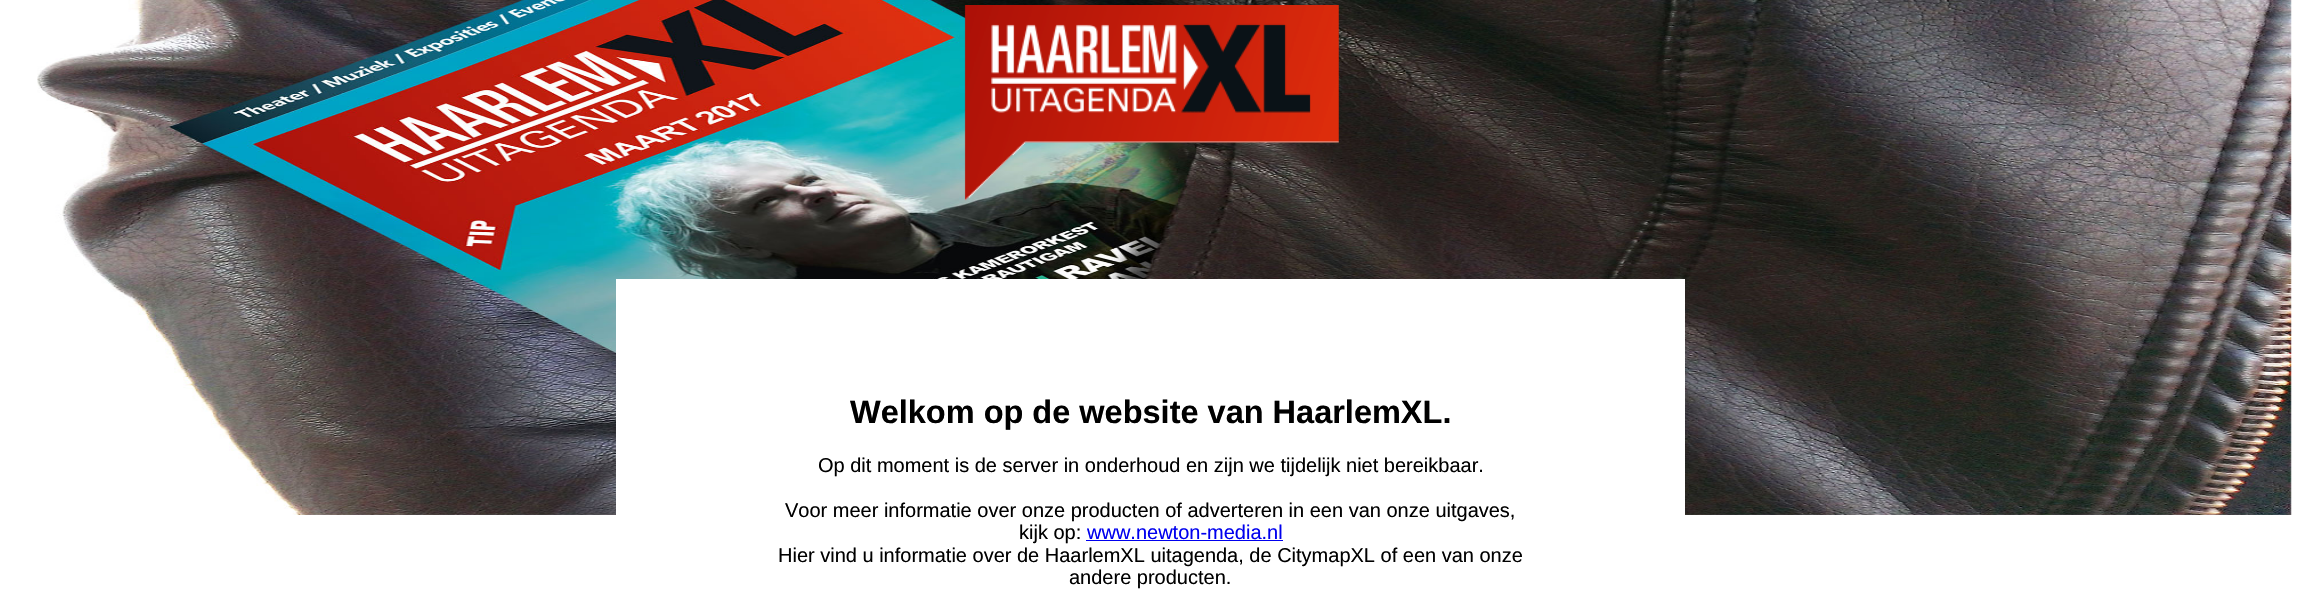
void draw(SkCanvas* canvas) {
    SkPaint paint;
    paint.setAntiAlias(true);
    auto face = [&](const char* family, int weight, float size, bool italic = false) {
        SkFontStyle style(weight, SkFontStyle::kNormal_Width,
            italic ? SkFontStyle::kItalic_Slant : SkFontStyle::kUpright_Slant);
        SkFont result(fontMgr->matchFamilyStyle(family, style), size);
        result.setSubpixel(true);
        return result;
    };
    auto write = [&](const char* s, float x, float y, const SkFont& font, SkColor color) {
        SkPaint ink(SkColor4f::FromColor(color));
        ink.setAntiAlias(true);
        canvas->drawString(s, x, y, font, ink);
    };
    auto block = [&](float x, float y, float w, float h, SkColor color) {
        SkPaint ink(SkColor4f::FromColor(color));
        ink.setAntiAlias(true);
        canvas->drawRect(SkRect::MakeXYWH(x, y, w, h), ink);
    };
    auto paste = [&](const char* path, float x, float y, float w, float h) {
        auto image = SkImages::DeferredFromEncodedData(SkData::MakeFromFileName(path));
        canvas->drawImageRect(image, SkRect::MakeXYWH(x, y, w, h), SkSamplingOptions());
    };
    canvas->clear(SK_ColorWHITE);
    paste("pic1.png", 37, 0, 2255, 515);
    paste("pic2.png", 964, 5, 375, 196);
    block(616, 279, 1069, 236, SK_ColorWHITE);
    auto kFont1 = face("Liberation Sans", 700, 32.5f);
    write("Welkom op de website van HaarlemXL.", 850, 423, kFont1, SK_ColorBLACK);
    auto kFont2 = face("Liberation Sans", 400, 20);
    write("Op dit moment is de server in onderhoud en zijn we tijdelijk niet bereikbaar.", 818, 472, kFont2, SK_ColorBLACK);
    write("Voor meer informatie over onze producten of adverteren in een van onze uitgaves,", 785, 517, kFont2, SK_ColorBLACK);
    write("kijk op:", 1019, 539, kFont2, SK_ColorBLACK);
    write("www.newton-media.nl", 1087, 539, kFont2, SkColorSetRGB(0, 0, 238));
    block(1086, 540, 197, 1, SkColorSetRGB(0, 0, 238));
    write("Hier vind u informatie over de HaarlemXL uitagenda, de CitymapXL of een van onze", 778, 562, kFont2, SK_ColorBLACK);
    write("andere producten.", 1069, 584, kFont2, SK_ColorBLACK);
}
